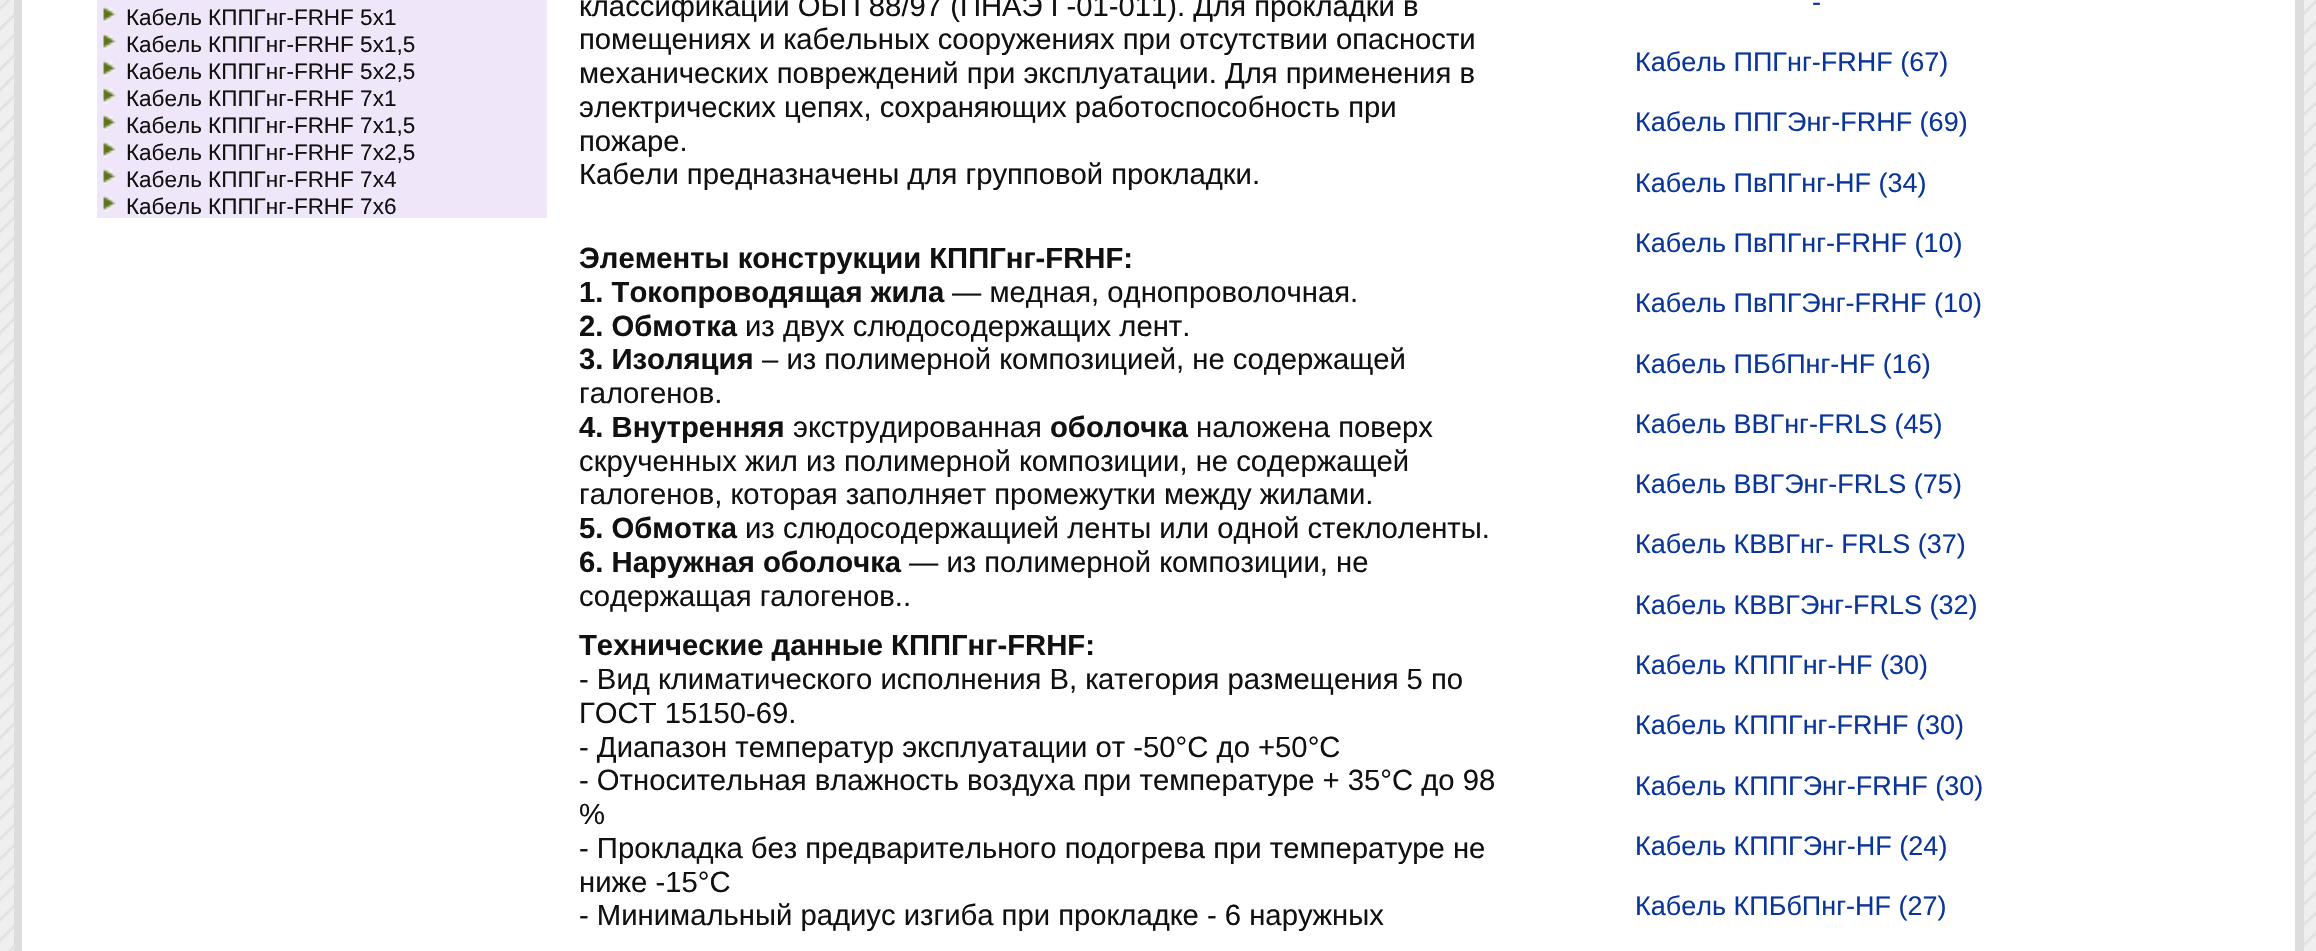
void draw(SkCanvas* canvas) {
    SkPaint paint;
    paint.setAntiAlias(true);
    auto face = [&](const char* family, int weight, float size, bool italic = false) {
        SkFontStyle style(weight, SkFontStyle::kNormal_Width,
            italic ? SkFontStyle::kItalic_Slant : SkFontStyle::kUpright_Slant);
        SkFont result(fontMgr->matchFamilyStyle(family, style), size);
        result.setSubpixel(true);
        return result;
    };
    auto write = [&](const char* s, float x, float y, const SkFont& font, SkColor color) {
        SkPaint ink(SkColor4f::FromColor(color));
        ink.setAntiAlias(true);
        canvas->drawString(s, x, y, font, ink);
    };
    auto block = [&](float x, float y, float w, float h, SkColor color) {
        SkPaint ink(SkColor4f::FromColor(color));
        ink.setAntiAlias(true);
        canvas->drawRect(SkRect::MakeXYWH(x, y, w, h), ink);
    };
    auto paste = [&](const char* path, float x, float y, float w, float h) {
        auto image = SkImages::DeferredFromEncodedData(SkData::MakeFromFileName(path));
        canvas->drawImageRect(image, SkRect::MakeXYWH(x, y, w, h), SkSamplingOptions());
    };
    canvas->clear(SK_ColorWHITE);
    paste("pic1.png", 0, 0, 2316, 951);
    block(22, 0, 2273, 951, SK_ColorWHITE);
    paint.setColor(SkColorSetRGB(221, 221, 221));
    canvas->drawPath(SkPathBuilder().moveTo(2304, -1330).lineTo(2304, 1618).lineTo(2295, 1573).lineTo(2295, -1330).close().detach(), paint);
    canvas->drawPath(SkPathBuilder().moveTo(14, 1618).lineTo(14, -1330).lineTo(22, -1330).lineTo(22, 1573).close().detach(), paint);
    block(97, 0, 450, 218, SkColorSetRGB(240, 230, 249));
    paste("pic2.png", 103, 5, 13, 18);
    auto kFont1 = face("Liberation Sans", 400, 22.5f);
    write("Кабель КППГнг-FRHF 5х1", 126, 25, kFont1, SkColorSetRGB(17, 17, 17));
    paste("pic2.png", 103, 32, 13, 18);
    write("Кабель КППГнг-FRHF 5х1,5", 126, 52, kFont1, SkColorSetRGB(17, 17, 17));
    paste("pic2.png", 103, 59, 13, 18);
    write("Кабель КППГнг-FRHF 5х2,5", 126, 79, kFont1, SkColorSetRGB(17, 17, 17));
    paste("pic2.png", 103, 86, 13, 18);
    write("Кабель КППГнг-FRHF 7х1", 126, 106, kFont1, SkColorSetRGB(17, 17, 17));
    paste("pic2.png", 103, 113, 13, 18);
    write("Кабель КППГнг-FRHF 7х1,5", 126, 133, kFont1, SkColorSetRGB(17, 17, 17));
    paste("pic2.png", 103, 140, 13, 18);
    write("Кабель КППГнг-FRHF 7х2,5", 126, 160, kFont1, SkColorSetRGB(17, 17, 17));
    paste("pic2.png", 103, 167, 13, 18);
    write("Кабель КППГнг-FRHF 7х4", 126, 187, kFont1, SkColorSetRGB(17, 17, 17));
    paste("pic2.png", 103, 194, 13, 18);
    write("Кабель КППГнг-FRHF 7х6", 126, 214, kFont1, SkColorSetRGB(17, 17, 17));
    auto kFont2 = face("Liberation Sans", 400, 29.25f);
    write("классификации ОБП 88/97 (ПНАЭ Г-01-011). Для прокладки в", 579, 16, kFont2, SkColorSetRGB(17, 17, 17));
    write("помещениях и кабельных сооружениях при отсутствии опасности", 579, 49, kFont2, SkColorSetRGB(17, 17, 17));
    write("механических повреждений при эксплуатации. Для применения в", 579, 83, kFont2, SkColorSetRGB(17, 17, 17));
    write("электрических цепях, сохраняющих работоспособность при", 579, 117, kFont2, SkColorSetRGB(17, 17, 17));
    write("пожаре.", 579, 151, kFont2, SkColorSetRGB(17, 17, 17));
    write("Кабели предназначены для групповой прокладки.", 579, 184, kFont2, SkColorSetRGB(17, 17, 17));
    auto kFont3 = face("Liberation Sans", 700, 29.25f);
    write("Элементы конструкции КППГнг-FRHF:", 579, 268, kFont3, SkColorSetRGB(17, 17, 17));
    write("1. Токопроводящая жила", 579, 302, kFont3, SkColorSetRGB(17, 17, 17));
    write("— медная, однопроволочная.", 952, 302, kFont2, SkColorSetRGB(17, 17, 17));
    write("2. Обмотка", 579, 336, kFont3, SkColorSetRGB(17, 17, 17));
    write("из двух слюдосодержащих лент.", 745, 336, kFont2, SkColorSetRGB(17, 17, 17));
    write("3. Изоляция", 579, 369, kFont3, SkColorSetRGB(17, 17, 17));
    write("– из полимерной композицией, не содержащей", 762, 369, kFont2, SkColorSetRGB(17, 17, 17));
    write("галогенов.", 579, 403, kFont2, SkColorSetRGB(17, 17, 17));
    write("4. Внутренняя", 579, 437, kFont3, SkColorSetRGB(17, 17, 17));
    write("экструдированная", 793, 437, kFont2, SkColorSetRGB(17, 17, 17));
    write("оболочка", 1050, 437, kFont3, SkColorSetRGB(17, 17, 17));
    write("наложена поверх", 1196, 437, kFont2, SkColorSetRGB(17, 17, 17));
    write("скрученных жил из полимерной композиции, не содержащей", 579, 471, kFont2, SkColorSetRGB(17, 17, 17));
    write("галогенов, которая заполняет промежутки между жилами.", 579, 504, kFont2, SkColorSetRGB(17, 17, 17));
    write("5. Обмотка", 579, 538, kFont3, SkColorSetRGB(17, 17, 17));
    write("из слюдосодержащией ленты или одной стеклоленты.", 745, 538, kFont2, SkColorSetRGB(17, 17, 17));
    write("6. Наружная оболочка", 579, 572, kFont3, SkColorSetRGB(17, 17, 17));
    write("— из полимерной композиции, не", 909, 572, kFont2, SkColorSetRGB(17, 17, 17));
    write("содержащая галогенов..", 579, 606, kFont2, SkColorSetRGB(17, 17, 17));
    write("Технические данные КППГнг-FRHF:", 579, 655, kFont3, SkColorSetRGB(17, 17, 17));
    write("- Вид климатического исполнения В, категория размещения 5 по", 579, 689, kFont2, SkColorSetRGB(17, 17, 17));
    write("ГОСТ 15150-69.", 579, 723, kFont2, SkColorSetRGB(17, 17, 17));
    write("- Диапазон температур эксплуатации от -50°С до +50°С", 579, 757, kFont2, SkColorSetRGB(17, 17, 17));
    write("- Относительная влажность воздуха при температуре + 35°С до 98", 579, 790, kFont2, SkColorSetRGB(17, 17, 17));
    write("%", 579, 824, kFont2, SkColorSetRGB(17, 17, 17));
    write("- Прокладка без предварительного подогрева при температуре не", 579, 858, kFont2, SkColorSetRGB(17, 17, 17));
    write("ниже -15°С", 579, 892, kFont2, SkColorSetRGB(17, 17, 17));
    write("- Минимальный радиус изгиба при прокладке - 6 наружных", 579, 925, kFont2, SkColorSetRGB(17, 17, 17));
    auto kFont4 = face("Liberation Sans", 400, 27);
    write("-", 1812, 11, kFont4, SkColorSetRGB(10, 53, 153));
    write("Кабель ППГнг-FRHF (67)", 1635, 71, kFont4, SkColorSetRGB(10, 53, 153));
    write("Кабель ППГЭнг-FRHF (69)", 1635, 131, kFont4, SkColorSetRGB(10, 53, 153));
    write("Кабель ПвПГнг-HF (34)", 1635, 192, kFont4, SkColorSetRGB(10, 53, 153));
    write("Кабель ПвПГнг-FRHF (10)", 1635, 252, kFont4, SkColorSetRGB(10, 53, 153));
    write("Кабель ПвПГЭнг-FRHF (10)", 1635, 312, kFont4, SkColorSetRGB(10, 53, 153));
    write("Кабель ПБбПнг-HF (16)", 1635, 373, kFont4, SkColorSetRGB(10, 53, 153));
    write("Кабель ВВГнг-FRLS (45)", 1635, 433, kFont4, SkColorSetRGB(10, 53, 153));
    write("Кабель ВВГЭнг-FRLS (75)", 1635, 493, kFont4, SkColorSetRGB(10, 53, 153));
    write("Кабель КВВГнг- FRLS (37)", 1635, 553, kFont4, SkColorSetRGB(10, 53, 153));
    write("Кабель КВВГЭнг-FRLS (32)", 1635, 614, kFont4, SkColorSetRGB(10, 53, 153));
    write("Кабель КППГнг-HF (30)", 1635, 674, kFont4, SkColorSetRGB(10, 53, 153));
    write("Кабель КППГнг-FRHF (30)", 1635, 734, kFont4, SkColorSetRGB(10, 53, 153));
    write("Кабель КППГЭнг-FRHF (30)", 1635, 795, kFont4, SkColorSetRGB(10, 53, 153));
    write("Кабель КППГЭнг-HF (24)", 1635, 855, kFont4, SkColorSetRGB(10, 53, 153));
    write("Кабель КПБбПнг-HF (27)", 1635, 915, kFont4, SkColorSetRGB(10, 53, 153));
}
